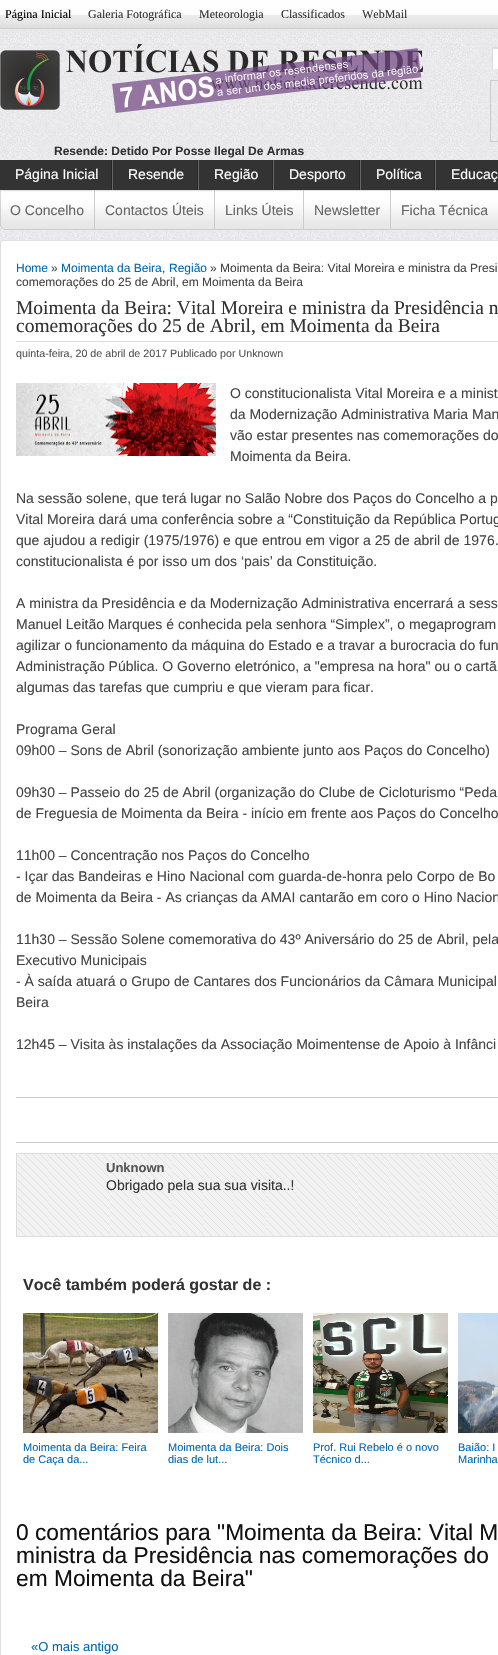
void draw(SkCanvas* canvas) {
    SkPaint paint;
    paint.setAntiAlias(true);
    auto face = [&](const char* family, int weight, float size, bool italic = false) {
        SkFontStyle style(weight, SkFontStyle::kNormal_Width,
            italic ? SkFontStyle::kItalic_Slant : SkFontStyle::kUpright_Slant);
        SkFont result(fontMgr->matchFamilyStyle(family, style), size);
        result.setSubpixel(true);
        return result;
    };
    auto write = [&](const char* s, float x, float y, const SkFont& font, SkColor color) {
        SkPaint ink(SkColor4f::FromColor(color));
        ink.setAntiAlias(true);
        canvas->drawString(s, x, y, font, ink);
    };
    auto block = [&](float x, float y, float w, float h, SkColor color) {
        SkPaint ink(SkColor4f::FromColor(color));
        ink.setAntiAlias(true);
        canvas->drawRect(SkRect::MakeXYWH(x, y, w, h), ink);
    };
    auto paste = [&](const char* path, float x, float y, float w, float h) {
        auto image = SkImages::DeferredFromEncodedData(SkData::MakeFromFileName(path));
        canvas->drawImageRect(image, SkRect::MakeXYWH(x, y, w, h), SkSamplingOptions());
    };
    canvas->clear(SK_ColorWHITE);
    paste("pic1.png", 0, 29, 498, 214);
    block(0, 25, 498, 3, SkColorSetRGB(223, 223, 223));
    paste("pic2.png", 0, 0, 498, 25);
    block(0, 28, 498, 1, SkColorSetRGB(204, 204, 204));
    auto kFont1 = face("Liberation Serif", 400, 12);
    write("Página Inicial", 5, 18, kFont1, SK_ColorBLACK);
    write("Galeria Fotográfica", 88, 18, kFont1, SkColorSetRGB(51, 51, 51));
    write("Meteorologia", 199, 18, kFont1, SkColorSetRGB(51, 51, 51));
    write("Classificados", 281, 18, kFont1, SkColorSetRGB(51, 51, 51));
    write("WebMail", 362, 18, kFont1, SkColorSetRGB(51, 51, 51));
    paste("pic3.png", 0, 44, 423, 69);
    block(493, 47, 5, 22, SK_ColorWHITE);
    block(492, 47, 6, 2, SkColorSetRGB(221, 221, 221));
    block(492, 47, 1, 22, SkColorSetRGB(221, 221, 221));
    paint.setStyle(SkPaint::kStroke_Style);
    paint.setStrokeWidth(1);
    paint.setColor(SkColorSetRGB(204, 204, 204));
    canvas->drawRect(SkRect::MakeXYWH(490.5f, 80.5f, 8, 61), paint);
    auto kFont2 = face("Liberation Sans", 700, 12);
    write("Resende: Detido Por Posse Ilegal De Armas", 54, 155, kFont2, SkColorSetRGB(51, 51, 51));
    block(0, 160, 498, 30, SkColorSetRGB(51, 51, 51));
    paste("pic4.png", 111, 160, 2, 30);
    auto kFont3 = face("Liberation Sans", 400, 14);
    write("Página Inicial", 15, 179, kFont3, SK_ColorWHITE);
    paste("pic4.png", 197, 160, 2, 30);
    write("Resende", 128, 179, kFont3, SK_ColorWHITE);
    paste("pic4.png", 272, 160, 2, 30);
    write("Região", 214, 179, kFont3, SK_ColorWHITE);
    paste("pic4.png", 359, 160, 2, 30);
    write("Desporto", 289, 179, kFont3, SK_ColorWHITE);
    paste("pic4.png", 434, 160, 2, 30);
    write("Política", 376, 179, kFont3, SK_ColorWHITE);
    write("Educaç", 451, 179, kFont3, SK_ColorWHITE);
    block(0, 190, 498, 40, SkColorSetRGB(223, 223, 223));
    paste("pic5.png", 0, 191, 498, 39);
    block(94, 190, 1, 39, SkColorSetRGB(204, 204, 204));
    write("O Concelho", 10, 215, kFont3, SkColorSetRGB(102, 102, 102));
    block(214, 190, 1, 39, SkColorSetRGB(204, 204, 204));
    write("Contactos Úteis", 105, 215, kFont3, SkColorSetRGB(102, 102, 102));
    block(303, 190, 1, 39, SkColorSetRGB(204, 204, 204));
    write("Links Úteis", 225, 215, kFont3, SkColorSetRGB(102, 102, 102));
    block(390, 190, 1, 39, SkColorSetRGB(204, 204, 204));
    write("Newsletter", 314, 215, kFont3, SkColorSetRGB(102, 102, 102));
    write("Ficha Técnica", 401, 215, kFont3, SkColorSetRGB(102, 102, 102));
    paint.setStyle(SkPaint::kFill_Style);
    paint.setColor(SK_ColorWHITE);
    canvas->drawRoundRect(SkRect::MakeXYWH(0.5f, 240.5f, 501, 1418), 2.5f, 2.5f, paint);
    paint.setStyle(SkPaint::kStroke_Style);
    paint.setColor(SkColorSetRGB(223, 223, 223));
    canvas->drawRoundRect(SkRect::MakeXYWH(0.5f, 240.5f, 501, 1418), 2.5f, 2.5f, paint);
    auto kFont4 = face("Liberation Sans", 400, 12);
    write("Home", 16, 272, kFont4, SkColorSetRGB(0, 104, 181));
    write("»", 51, 272, kFont4, SkColorSetRGB(68, 68, 68));
    write("Moimenta da Beira", 61, 272, kFont4, SkColorSetRGB(0, 104, 181));
    write(",", 162, 272, kFont4, SkColorSetRGB(68, 68, 68));
    write("Região", 169, 272, kFont4, SkColorSetRGB(0, 104, 181));
    write("» Moimenta da Beira: Vital Moreira e ministra da Presi", 210, 272, kFont4, SkColorSetRGB(68, 68, 68));
    write("comemorações do 25 de Abril, em Moimenta da Beira", 16, 286, kFont4, SkColorSetRGB(68, 68, 68));
    block(16, 341, 482, 1, SkColorSetRGB(221, 221, 221));
    auto kFont5 = face("Liberation Serif", 400, 19.5f);
    write("Moimenta da Beira: Vital Moreira e ministra da Presidência n", 16, 314, kFont5, SkColorSetRGB(51, 51, 51));
    write("comemorações do 25 de Abril, em Moimenta da Beira", 16, 332, kFont5, SkColorSetRGB(51, 51, 51));
    auto kFont6 = face("Liberation Sans", 400, 10.7f);
    write("quinta-feira, 20 de abril de 2017 Publicado por Unknown", 16, 357, kFont6, SkColorSetRGB(85, 85, 85));
    paste("pic6.png", 16, 383, 200, 73);
    write("O constitucionalista Vital Moreira e a minist", 230, 398, kFont3, SkColorSetRGB(68, 68, 68));
    write("da Modernização Administrativa Maria Man", 230, 419, kFont3, SkColorSetRGB(68, 68, 68));
    write("vão estar presentes nas comemorações do", 230, 440, kFont3, SkColorSetRGB(68, 68, 68));
    write("Moimenta da Beira.", 230, 461, kFont3, SkColorSetRGB(68, 68, 68));
    write("Na sessão solene, que terá lugar no Salão Nobre dos Paços do Concelho a p", 16, 503, kFont3, SkColorSetRGB(68, 68, 68));
    write("Vital Moreira dará uma conferência sobre a “Constituição da República Portug", 16, 524, kFont3, SkColorSetRGB(68, 68, 68));
    write("que ajudou a redigir (1975/1976) e que entrou em vigor a 25 de abril de 1976.", 16, 545, kFont3, SkColorSetRGB(68, 68, 68));
    write("constitucionalista é por isso um dos ‘pais’ da Constituição.", 16, 566, kFont3, SkColorSetRGB(68, 68, 68));
    write("A ministra da Presidência e da Modernização Administrativa encerrará a sess", 16, 608, kFont3, SkColorSetRGB(68, 68, 68));
    write("Manuel Leitão Marques é conhecida pela senhora “Simplex”, o megaprogram", 16, 629, kFont3, SkColorSetRGB(68, 68, 68));
    write("agilizar o funcionamento da máquina do Estado e a travar a burocracia do fun", 16, 650, kFont3, SkColorSetRGB(68, 68, 68));
    write("Administração Pública. O Governo eletrónico, a \"empresa na hora\" ou o cartã", 16, 671, kFont3, SkColorSetRGB(68, 68, 68));
    write("algumas das tarefas que cumpriu e que vieram para ficar.", 16, 692, kFont3, SkColorSetRGB(68, 68, 68));
    write("Programa Geral", 16, 734, kFont3, SkColorSetRGB(68, 68, 68));
    write("09h00 – Sons de Abril (sonorização ambiente junto aos Paços do Concelho)", 16, 755, kFont3, SkColorSetRGB(68, 68, 68));
    write("09h30 – Passeio do 25 de Abril (organização do Clube de Cicloturismo “Peda", 16, 797, kFont3, SkColorSetRGB(68, 68, 68));
    write("de Freguesia de Moimenta da Beira - início em frente aos Paços do Concelho", 16, 818, kFont3, SkColorSetRGB(68, 68, 68));
    write("11h00 – Concentração nos Paços do Concelho", 16, 860, kFont3, SkColorSetRGB(68, 68, 68));
    write("- Içar das Bandeiras e Hino Nacional com guarda-de-honra pelo Corpo de Bo", 16, 881, kFont3, SkColorSetRGB(68, 68, 68));
    write("de Moimenta da Beira - As crianças da AMAI cantarão em coro o Hino Nacion", 16, 902, kFont3, SkColorSetRGB(68, 68, 68));
    write("11h30 – Sessão Solene comemorativa do 43º Aniversário do 25 de Abril, pela", 16, 944, kFont3, SkColorSetRGB(68, 68, 68));
    write("Executivo Municipais", 16, 965, kFont3, SkColorSetRGB(68, 68, 68));
    write("- À saída atuará o Grupo de Cantares dos Funcionários da Câmara Municipal", 16, 986, kFont3, SkColorSetRGB(68, 68, 68));
    write("Beira", 16, 1007, kFont3, SkColorSetRGB(68, 68, 68));
    write("12h45 – Visita às instalações da Associação Moimentense de Apoio à Infânci", 16, 1049, kFont3, SkColorSetRGB(68, 68, 68));
    block(16, 1097, 482, 1, SkColorSetRGB(204, 204, 204));
    block(16, 1142, 482, 1, SkColorSetRGB(204, 204, 204));
    block(17, 1154, 481, 82, SkColorSetRGB(242, 242, 242));
    paste("pic7.png", 17, 1154, 481, 82);
    paint.setColor(SkColorSetRGB(221, 221, 221));
    canvas->drawRect(SkRect::MakeXYWH(16.5f, 1153.5f, 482, 83), paint);
    auto kFont7 = face("Liberation Sans", 700, 13);
    write("Unknown", 106, 1172, kFont7, SkColorSetRGB(85, 85, 85));
    write("Obrigado pela sua sua visita..!", 106, 1190, kFont3, SkColorSetRGB(51, 51, 51));
    auto kFont8 = face("Liberation Sans", 700, 16);
    write("Você também poderá gostar de :", 23, 1290, kFont8, SkColorSetRGB(51, 51, 51));
    paste("pic8.png", 23, 1313, 135, 120);
    auto kFont9 = face("Liberation Sans", 400, 11);
    write("Moimenta da Beira: Feira", 23, 1451, kFont9, SkColorSetRGB(0, 104, 181));
    write("de Caça da...", 23, 1463, kFont9, SkColorSetRGB(0, 104, 181));
    paste("pic9.png", 168, 1313, 135, 120);
    write("Moimenta da Beira: Dois", 168, 1451, kFont9, SkColorSetRGB(0, 104, 181));
    write("dias de lut...", 168, 1463, kFont9, SkColorSetRGB(0, 104, 181));
    paste("pic10.png", 313, 1313, 135, 120);
    write("Prof. Rui Rebelo é o novo", 313, 1451, kFont9, SkColorSetRGB(0, 104, 181));
    write("Técnico d...", 313, 1463, kFont9, SkColorSetRGB(0, 104, 181));
    paste("pic11.png", 458, 1313, 40, 120);
    write("Baião: I", 458, 1451, kFont9, SkColorSetRGB(0, 104, 181));
    write("Marinha", 458, 1463, kFont9, SkColorSetRGB(0, 104, 181));
    auto kFont10 = face("Liberation Sans", 400, 22.75f);
    write("0 comentários para \"Moimenta da Beira: Vital M", 16, 1540, kFont10, SkColorSetRGB(17, 17, 17));
    write("ministra da Presidência nas comemorações do", 16, 1563, kFont10, SkColorSetRGB(17, 17, 17));
    write("em Moimenta da Beira\"", 16, 1586, kFont10, SkColorSetRGB(17, 17, 17));
    auto kFont11 = face("Liberation Sans", 400, 13);
    write("«O mais antigo", 31, 1651, kFont11, SkColorSetRGB(0, 104, 181));
}
